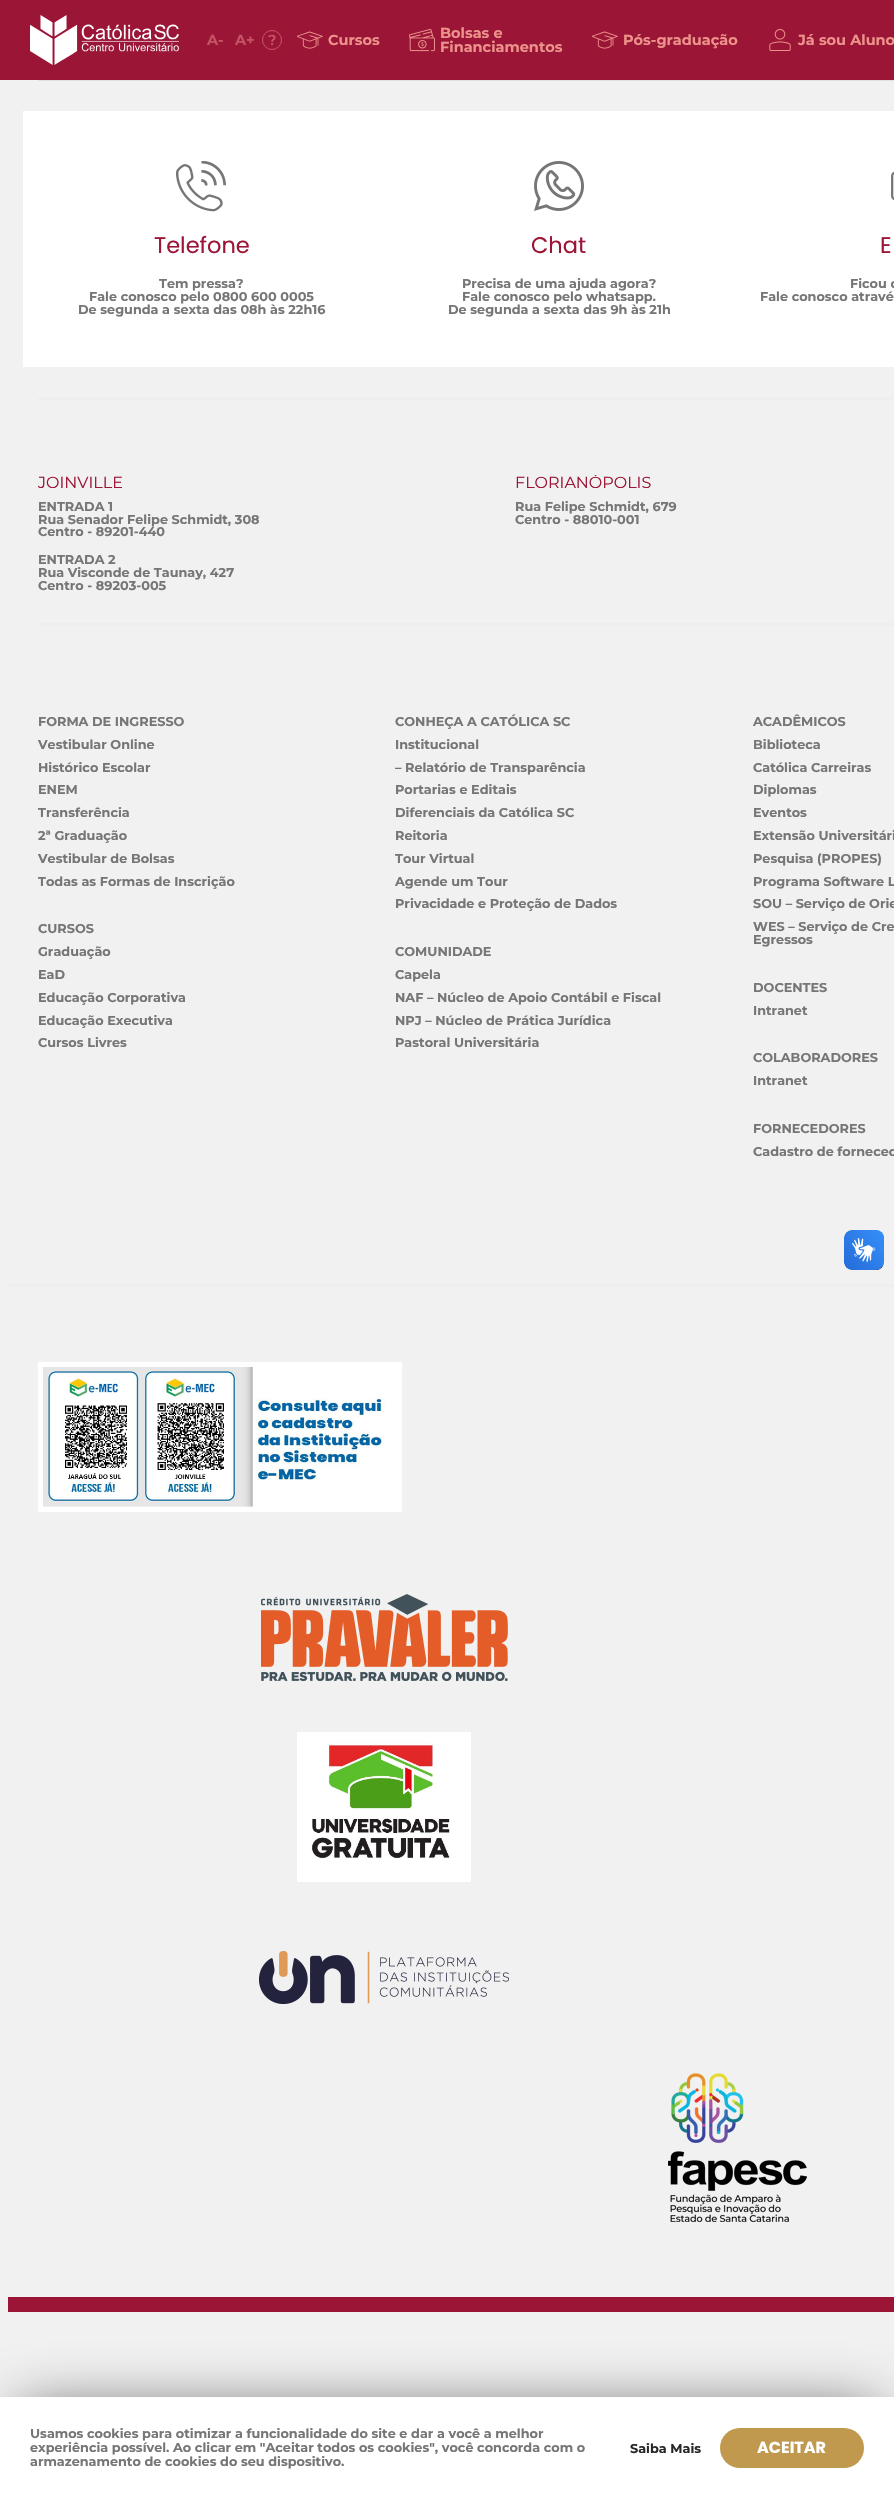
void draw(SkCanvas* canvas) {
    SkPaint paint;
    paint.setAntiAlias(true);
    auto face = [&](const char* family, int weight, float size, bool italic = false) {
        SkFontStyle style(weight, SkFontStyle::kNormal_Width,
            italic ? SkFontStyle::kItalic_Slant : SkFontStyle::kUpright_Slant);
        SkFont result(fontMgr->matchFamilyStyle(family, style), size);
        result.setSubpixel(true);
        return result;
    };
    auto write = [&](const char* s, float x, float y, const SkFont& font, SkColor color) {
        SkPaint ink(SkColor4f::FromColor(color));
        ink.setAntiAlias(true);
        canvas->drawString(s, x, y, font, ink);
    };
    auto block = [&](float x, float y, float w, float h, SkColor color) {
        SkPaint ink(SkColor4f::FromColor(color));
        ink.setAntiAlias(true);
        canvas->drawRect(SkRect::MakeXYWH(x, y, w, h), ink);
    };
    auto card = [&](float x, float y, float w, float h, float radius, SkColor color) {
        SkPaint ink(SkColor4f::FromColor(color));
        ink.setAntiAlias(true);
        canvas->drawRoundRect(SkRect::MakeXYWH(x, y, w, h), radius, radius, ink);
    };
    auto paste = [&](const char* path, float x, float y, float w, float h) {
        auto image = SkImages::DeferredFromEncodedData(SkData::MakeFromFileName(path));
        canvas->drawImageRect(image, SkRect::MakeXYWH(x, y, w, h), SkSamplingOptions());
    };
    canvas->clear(SkColorSetRGB(241, 241, 241));
    block(0, 0, 894, 80, SkColorSetRGB(155, 21, 54));
    paste("pic1.png", 30, 15, 149, 50);
    auto kFont1 = face("Montserrat", 700, 14.5f);
    write("A-", 207, 45, kFont1, SkColorSetRGB(196, 84, 97));
    write("A+", 235, 45, kFont1, SkColorSetRGB(196, 84, 97));
    paint.setStyle(SkPaint::kStroke_Style);
    paint.setStrokeWidth(1);
    paint.setColor(SkColorSetRGB(196, 84, 97));
    canvas->drawCircle(272, 40, 9.5f, paint);
    auto kFont2 = face("Montserrat", 600, 14.5f);
    write("?", 268, 45, kFont2, SkColorSetRGB(196, 84, 97));
    paste("pic2.png", 297, 31, 26, 18);
    write("Cursos", 328, 45, kFont1, SkColorSetRGB(236, 146, 139));
    paste("pic3.png", 409, 29, 26, 23);
    write("Bolsas e", 440, 38, kFont1, SkColorSetRGB(236, 146, 139));
    write("Financiamentos", 440, 52, kFont1, SkColorSetRGB(236, 146, 139));
    paste("pic2.png", 592, 31, 26, 18);
    write("Pós-graduação", 623, 45, kFont1, SkColorSetRGB(236, 146, 139));
    paste("pic4.png", 769, 29, 22, 22);
    write("Já sou Aluno", 798, 45, kFont1, SkColorSetRGB(236, 146, 139));
    block(38, 80, 856, 1, SkColorSetRGB(225, 225, 225));
    block(8, 2297, 886, 15, SkColorSetRGB(155, 21, 54));
    block(23, 111, 871, 256, SK_ColorWHITE);
    paste("pic5.png", 176, 161, 50, 51);
    auto kFont3 = face("Poppins", 400, 22.5f);
    write("Telefone", 154, 253, kFont3, SkColorSetRGB(155, 21, 54));
    auto kFont4 = face("Montserrat", 700, 12.8f);
    write("Tem pressa?", 159, 288, kFont4, SkColorSetRGB(118, 118, 118));
    write("Fale conosco pelo 0800 600 0005", 89, 301, kFont4, SkColorSetRGB(118, 118, 118));
    write("De segunda a sexta das 08h às 22h16", 78, 314, kFont4, SkColorSetRGB(118, 118, 118));
    paste("pic6.png", 534, 161, 50, 50);
    write("Chat", 531, 253, kFont3, SkColorSetRGB(155, 21, 54));
    write("Precisa de uma ajuda agora?", 462, 288, kFont4, SkColorSetRGB(118, 118, 118));
    write("Fale conosco pelo whatsapp.", 462, 301, kFont4, SkColorSetRGB(118, 118, 118));
    write("De segunda a sexta das 9h às 21h", 448, 314, kFont4, SkColorSetRGB(118, 118, 118));
    paste("pic7.png", 891, 171, 3, 30);
    write("E", 880, 253, kFont3, SkColorSetRGB(155, 21, 54));
    write("Ficou c", 850, 288, kFont4, SkColorSetRGB(118, 118, 118));
    write("Fale conosco atravé", 760, 301, kFont4, SkColorSetRGB(118, 118, 118));
    block(38, 397, 856, 3, SkColorSetRGB(238, 237, 240));
    auto kFont5 = face("Montserrat", 400, 16);
    write("JOINVILLE", 38, 488, kFont5, SkColorSetRGB(155, 21, 54));
    write("ENTRADA 1", 38, 511, kFont4, SkColorSetRGB(118, 118, 118));
    write("Rua Senador Felipe Schmidt, 308", 38, 524, kFont4, SkColorSetRGB(118, 118, 118));
    write("Centro - 89201-440", 38, 536, kFont4, SkColorSetRGB(118, 118, 118));
    write("ENTRADA 2", 38, 564, kFont4, SkColorSetRGB(118, 118, 118));
    write("Rua Visconde de Taunay, 427", 38, 577, kFont4, SkColorSetRGB(118, 118, 118));
    write("Centro - 89203-005", 38, 590, kFont4, SkColorSetRGB(118, 118, 118));
    canvas->save();
    canvas->clipRect(SkRect::MakeXYWH(23, 475, 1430, 118));
    write("FLORIANÓPOLIS", 515, 488, kFont5, SkColorSetRGB(155, 21, 54));
    canvas->restore();
    write("Rua Felipe Schmidt, 679", 515, 511, kFont4, SkColorSetRGB(118, 118, 118));
    write("Centro - 88010-001", 515, 524, kFont4, SkColorSetRGB(118, 118, 118));
    block(38, 623, 856, 3, SkColorSetRGB(238, 237, 240));
    write("FORMA DE INGRESSO", 38, 726, kFont4, SkColorSetRGB(118, 118, 118));
    write("Vestibular Online", 38, 749, kFont4, SkColorSetRGB(118, 118, 118));
    write("Histórico Escolar", 38, 772, kFont4, SkColorSetRGB(118, 118, 118));
    write("ENEM", 38, 794, kFont4, SkColorSetRGB(118, 118, 118));
    write("Transferência", 38, 817, kFont4, SkColorSetRGB(118, 118, 118));
    write("2ª Graduação", 38, 840, kFont4, SkColorSetRGB(118, 118, 118));
    write("Vestibular de Bolsas", 38, 863, kFont4, SkColorSetRGB(118, 118, 118));
    write("Todas as Formas de Inscrição", 38, 886, kFont4, SkColorSetRGB(118, 118, 118));
    write("CURSOS", 38, 933, kFont4, SkColorSetRGB(118, 118, 118));
    write("Graduação", 38, 956, kFont4, SkColorSetRGB(118, 118, 118));
    write("EaD", 38, 979, kFont4, SkColorSetRGB(118, 118, 118));
    write("Educação Corporativa", 38, 1002, kFont4, SkColorSetRGB(118, 118, 118));
    write("Educação Executiva", 38, 1025, kFont4, SkColorSetRGB(118, 118, 118));
    write("Cursos Livres", 38, 1047, kFont4, SkColorSetRGB(118, 118, 118));
    write("CONHEÇA A CATÓLICA SC", 395, 726, kFont4, SkColorSetRGB(118, 118, 118));
    write("Institucional", 395, 749, kFont4, SkColorSetRGB(118, 118, 118));
    write("– Relatório de Transparência", 395, 772, kFont4, SkColorSetRGB(118, 118, 118));
    write("Portarias e Editais", 395, 794, kFont4, SkColorSetRGB(118, 118, 118));
    write("Diferenciais da Católica SC", 395, 817, kFont4, SkColorSetRGB(118, 118, 118));
    write("Reitoria", 395, 840, kFont4, SkColorSetRGB(118, 118, 118));
    write("Tour Virtual", 395, 863, kFont4, SkColorSetRGB(118, 118, 118));
    write("Agende um Tour", 395, 886, kFont4, SkColorSetRGB(118, 118, 118));
    write("Privacidade e Proteção de Dados", 395, 908, kFont4, SkColorSetRGB(118, 118, 118));
    write("COMUNIDADE", 395, 956, kFont4, SkColorSetRGB(118, 118, 118));
    write("Capela", 395, 979, kFont4, SkColorSetRGB(118, 118, 118));
    write("NAF – Núcleo de Apoio Contábil e Fiscal", 395, 1002, kFont4, SkColorSetRGB(118, 118, 118));
    write("NPJ – Núcleo de Prática Jurídica", 395, 1025, kFont4, SkColorSetRGB(118, 118, 118));
    write("Pastoral Universitária", 395, 1047, kFont4, SkColorSetRGB(118, 118, 118));
    write("ACADÊMICOS", 753, 726, kFont4, SkColorSetRGB(118, 118, 118));
    write("Biblioteca", 753, 749, kFont4, SkColorSetRGB(118, 118, 118));
    write("Católica Carreiras", 753, 772, kFont4, SkColorSetRGB(118, 118, 118));
    write("Diplomas", 753, 794, kFont4, SkColorSetRGB(118, 118, 118));
    write("Eventos", 753, 817, kFont4, SkColorSetRGB(118, 118, 118));
    write("Extensão Universitári", 753, 840, kFont4, SkColorSetRGB(118, 118, 118));
    write("Pesquisa (PROPES)", 753, 863, kFont4, SkColorSetRGB(118, 118, 118));
    write("Programa Software L", 753, 886, kFont4, SkColorSetRGB(118, 118, 118));
    write("SOU – Serviço de Orie", 753, 908, kFont4, SkColorSetRGB(118, 118, 118));
    write("WES – Serviço de Cre", 753, 931, kFont4, SkColorSetRGB(118, 118, 118));
    write("Egressos", 753, 944, kFont4, SkColorSetRGB(118, 118, 118));
    write("DOCENTES", 753, 992, kFont4, SkColorSetRGB(118, 118, 118));
    write("Intranet", 753, 1015, kFont4, SkColorSetRGB(118, 118, 118));
    write("COLABORADORES", 753, 1062, kFont4, SkColorSetRGB(118, 118, 118));
    write("Intranet", 753, 1085, kFont4, SkColorSetRGB(118, 118, 118));
    write("FORNECEDORES", 753, 1133, kFont4, SkColorSetRGB(118, 118, 118));
    write("Cadastro de forneced", 753, 1156, kFont4, SkColorSetRGB(118, 118, 118));
    block(8, 1284, 886, 3, SkColorSetRGB(238, 237, 240));
    paste("pic8.png", 38, 1362, 364, 150);
    paste("pic9.png", 261, 1594, 247, 87);
    paste("pic10.png", 297, 1732, 174, 150);
    paste("pic11.png", 259, 1951, 250, 53);
    paste("pic12.png", 668, 2073, 139, 149);
    paint.setStyle(SkPaint::kFill_Style);
    paint.setColor(SkColorSetARGB(191, 0, 0, 0));
    paint.setMaskFilter(SkMaskFilter::MakeBlur(kNormal_SkBlurStyle, 31));
    canvas->drawRect(SkRect::MakeXYWH(20, 2415, 858, 66), paint);
    paint.setMaskFilter(nullptr);
    block(0, 2397, 894, 102, SK_ColorWHITE);
    write("Usamos cookies para otimizar a funcionalidade do site e dar a você a melhor", 30, 2438, kFont4, SkColorSetRGB(118, 118, 118));
    write("experiência possível. Ao clicar em \"Aceitar todos os cookies\", você concorda com o", 30, 2452, kFont4, SkColorSetRGB(118, 118, 118));
    write("armazenamento de cookies do seu dispositivo.", 30, 2466, kFont4, SkColorSetRGB(118, 118, 118));
    write("Saiba Mais", 630, 2453, kFont4, SkColorSetRGB(40, 40, 40));
    card(720, 2428, 144, 40, 20, SkColorSetRGB(192, 153, 79));
    auto kFont6 = face("Poppins", 700, 16);
    write("ACEITAR", 757, 2453, kFont6, SK_ColorWHITE);
    paste("pic13.png", 844, 1230, 40, 40);
    paste("pic14.png", 844, 1230, 40, 40);
}
